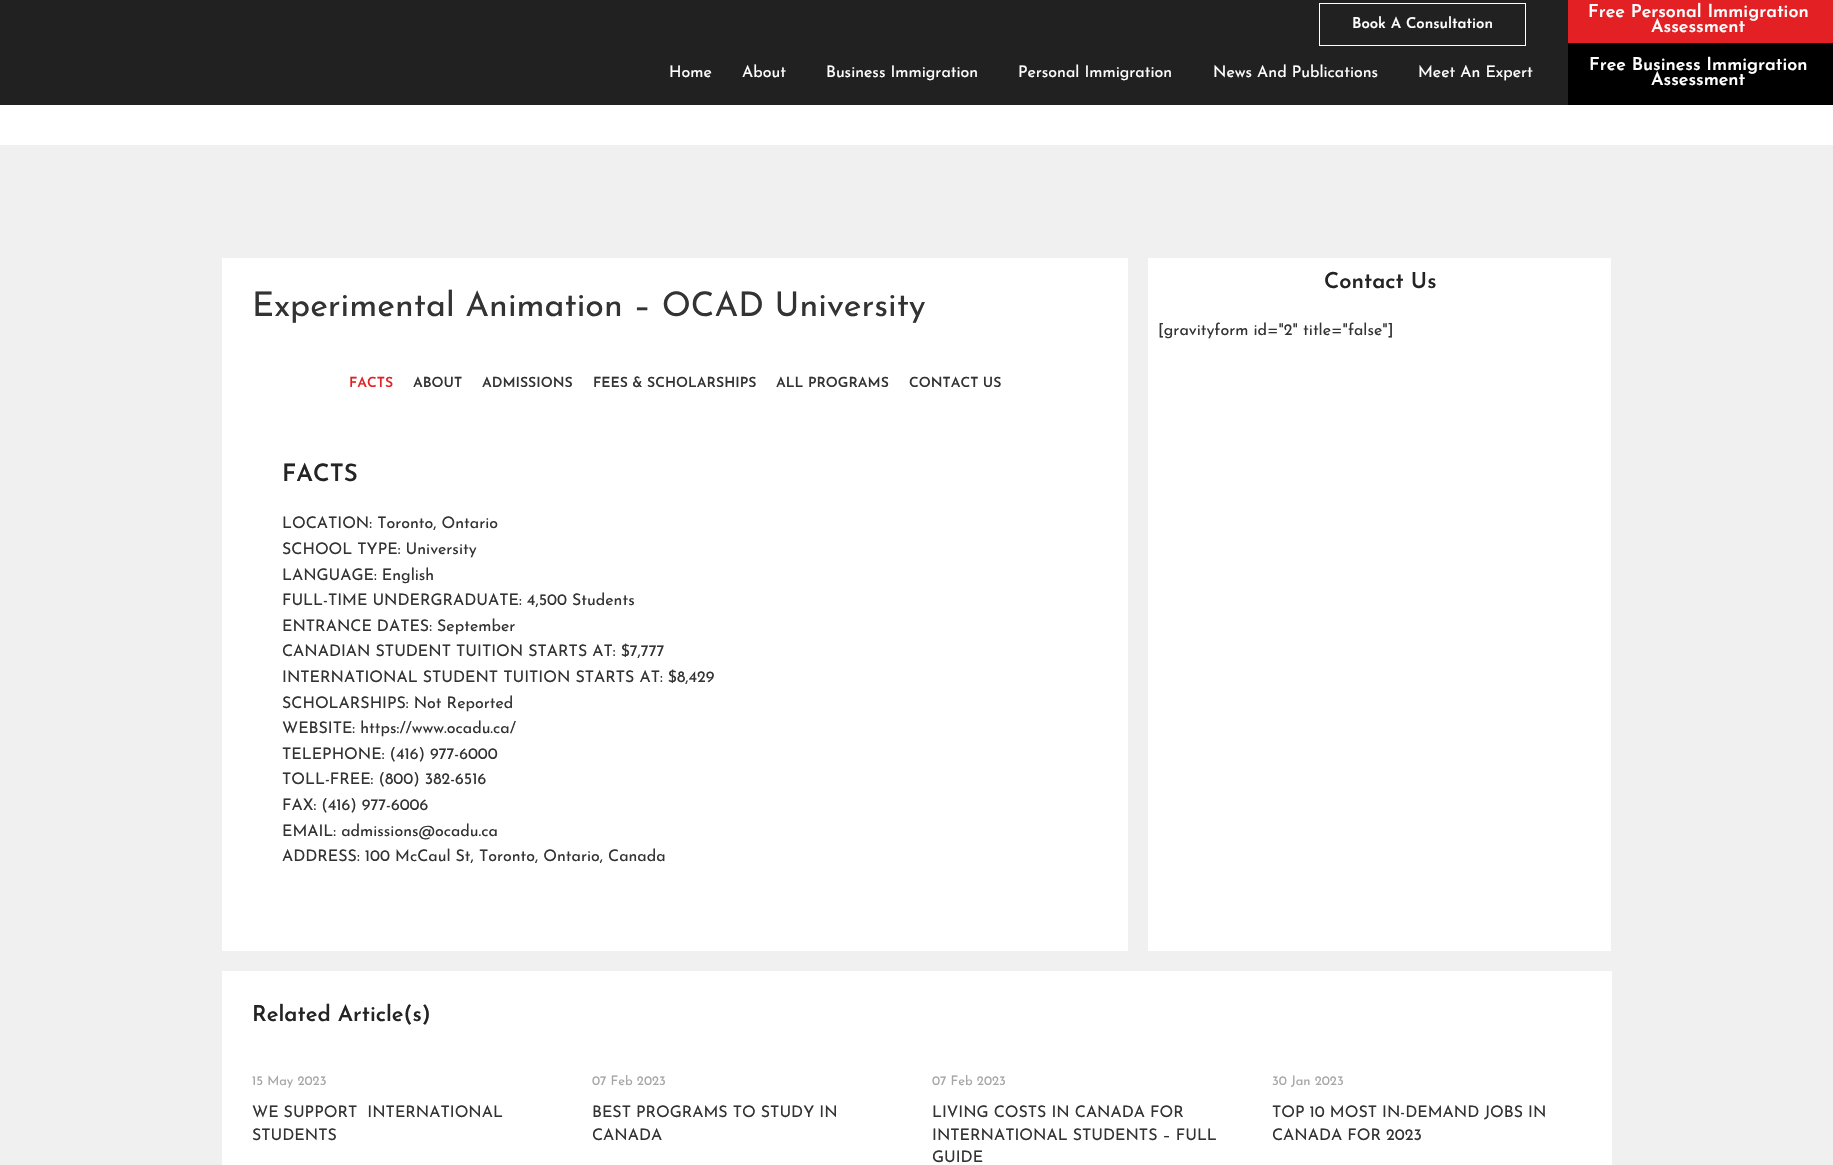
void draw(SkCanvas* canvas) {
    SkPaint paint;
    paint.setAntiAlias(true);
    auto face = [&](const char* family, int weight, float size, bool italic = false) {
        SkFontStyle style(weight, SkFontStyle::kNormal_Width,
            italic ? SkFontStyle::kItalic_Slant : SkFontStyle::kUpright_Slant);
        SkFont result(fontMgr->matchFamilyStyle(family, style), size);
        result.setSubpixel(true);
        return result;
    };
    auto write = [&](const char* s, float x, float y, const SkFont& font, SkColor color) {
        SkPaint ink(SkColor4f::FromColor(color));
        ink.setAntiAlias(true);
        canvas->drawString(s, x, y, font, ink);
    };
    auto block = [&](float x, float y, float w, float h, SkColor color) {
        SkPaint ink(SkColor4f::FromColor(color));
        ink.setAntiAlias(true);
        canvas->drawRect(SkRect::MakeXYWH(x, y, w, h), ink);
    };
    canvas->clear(SK_ColorWHITE);
    block(0, 0, 1568, 105, SkColorSetRGB(33, 33, 33));
    paint.setStyle(SkPaint::kStroke_Style);
    paint.setStrokeWidth(1);
    paint.setColor(SK_ColorWHITE);
    canvas->drawRect(SkRect::MakeXYWH(1319.5f, 3.5f, 206, 42), paint);
    auto kFont1 = face("Josefin Sans", 600, 15);
    write("Book A Consultation", 1352, 28, kFont1, SK_ColorWHITE);
    block(1568, 0, 265, 43, SkColorSetRGB(227, 33, 36));
    auto kFont2 = face("Josefin Sans", 600, 18);
    write("Free Personal Immigration", 1588, 17, kFont2, SK_ColorWHITE);
    write("Assessment", 1651, 32, kFont2, SK_ColorWHITE);
    auto kFont3 = face("Josefin Sans", 400, 16);
    write("Home", 669, 77, kFont3, SK_ColorWHITE);
    write("About", 742, 77, kFont3, SK_ColorWHITE);
    write("Business Immigration", 826, 77, kFont3, SK_ColorWHITE);
    write("Personal Immigration", 1018, 77, kFont3, SK_ColorWHITE);
    write("News And Publications", 1213, 77, kFont3, SK_ColorWHITE);
    write("Meet An Expert", 1418, 77, kFont3, SK_ColorWHITE);
    block(1568, 43, 265, 62, SK_ColorBLACK);
    write("Free Business Immigration", 1589, 70, kFont2, SK_ColorWHITE);
    write("Assessment", 1651, 85, kFont2, SK_ColorWHITE);
    block(0, 145, 1833, 1020, SkColorSetRGB(240, 240, 240));
    block(222, 258, 906, 693, SK_ColorWHITE);
    auto kFont4 = face("Josefin Sans", 400, 34);
    write("Experimental Animation – OCAD University", 252, 316, kFont4, SkColorSetRGB(51, 51, 51));
    auto kFont5 = face("Josefin Sans", 600, 14);
    write("FACTS", 349, 387, kFont5, SkColorSetRGB(227, 33, 36));
    write("ABOUT", 413, 387, kFont5, SkColorSetRGB(51, 51, 51));
    write("ADMISSIONS", 482, 387, kFont5, SkColorSetRGB(51, 51, 51));
    write("FEES & SCHOLARSHIPS", 593, 387, kFont5, SkColorSetRGB(51, 51, 51));
    write("ALL PROGRAMS", 776, 387, kFont5, SkColorSetRGB(51, 51, 51));
    write("CONTACT US", 909, 387, kFont5, SkColorSetRGB(51, 51, 51));
    auto kFont6 = face("Josefin Sans", 600, 24);
    write("FACTS", 282, 481, kFont6, SkColorSetRGB(36, 36, 36));
    write("LOCATION: Toronto, Ontario", 282, 528, kFont3, SkColorSetRGB(51, 51, 51));
    write("SCHOOL TYPE: University", 282, 554, kFont3, SkColorSetRGB(51, 51, 51));
    write("LANGUAGE: English", 282, 580, kFont3, SkColorSetRGB(51, 51, 51));
    write("FULL-TIME UNDERGRADUATE: 4,500 Students", 282, 605, kFont3, SkColorSetRGB(51, 51, 51));
    write("ENTRANCE DATES: September", 282, 631, kFont3, SkColorSetRGB(51, 51, 51));
    write("CANADIAN STUDENT TUITION STARTS AT: $7,777", 282, 656, kFont3, SkColorSetRGB(51, 51, 51));
    write("INTERNATIONAL STUDENT TUITION STARTS AT: $8,429", 282, 682, kFont3, SkColorSetRGB(51, 51, 51));
    write("SCHOLARSHIPS: Not Reported", 282, 708, kFont3, SkColorSetRGB(51, 51, 51));
    write("WEBSITE: https://www.ocadu.ca/", 282, 733, kFont3, SkColorSetRGB(51, 51, 51));
    write("TELEPHONE: (416) 977-6000", 282, 759, kFont3, SkColorSetRGB(51, 51, 51));
    write("TOLL-FREE: (800) 382-6516", 282, 784, kFont3, SkColorSetRGB(51, 51, 51));
    write("FAX: (416) 977-6006", 282, 810, kFont3, SkColorSetRGB(51, 51, 51));
    write("EMAIL: admissions@ocadu.ca", 282, 836, kFont3, SkColorSetRGB(51, 51, 51));
    write("ADDRESS: 100 McCaul St, Toronto, Ontario, Canada", 282, 861, kFont3, SkColorSetRGB(51, 51, 51));
    block(1148, 258, 463, 693, SK_ColorWHITE);
    auto kFont7 = face("Josefin Sans", 600, 22);
    write("Contact Us", 1324, 288, kFont7, SkColorSetRGB(36, 36, 36));
    write("[gravityform id=\"2\" title=\"false\"]", 1158, 335, kFont3, SkColorSetRGB(51, 51, 51));
    block(222, 971, 1390, 194, SK_ColorWHITE);
    write("Related Article(s)", 252, 1021, kFont7, SkColorSetRGB(36, 36, 36));
    auto kFont8 = face("Josefin Sans", 400, 13);
    write("15 May 2023", 252, 1085, kFont8, SkColorSetRGB(165, 165, 165));
    write("WE SUPPORT  INTERNATIONAL", 252, 1117, kFont3, SkColorSetRGB(51, 51, 51));
    write("STUDENTS", 252, 1140, kFont3, SkColorSetRGB(51, 51, 51));
    write("07 Feb 2023", 592, 1085, kFont8, SkColorSetRGB(165, 165, 165));
    write("BEST PROGRAMS TO STUDY IN", 592, 1117, kFont3, SkColorSetRGB(51, 51, 51));
    write("CANADA", 592, 1140, kFont3, SkColorSetRGB(51, 51, 51));
    write("07 Feb 2023", 932, 1085, kFont8, SkColorSetRGB(165, 165, 165));
    write("LIVING COSTS IN CANADA FOR", 932, 1117, kFont3, SkColorSetRGB(51, 51, 51));
    write("INTERNATIONAL STUDENTS – FULL", 932, 1140, kFont3, SkColorSetRGB(51, 51, 51));
    write("GUIDE", 932, 1162, kFont3, SkColorSetRGB(51, 51, 51));
    write("30 Jan 2023", 1272, 1085, kFont8, SkColorSetRGB(165, 165, 165));
    write("TOP 10 MOST IN-DEMAND JOBS IN", 1272, 1117, kFont3, SkColorSetRGB(51, 51, 51));
    write("CANADA FOR 2023", 1272, 1140, kFont3, SkColorSetRGB(51, 51, 51));
}
